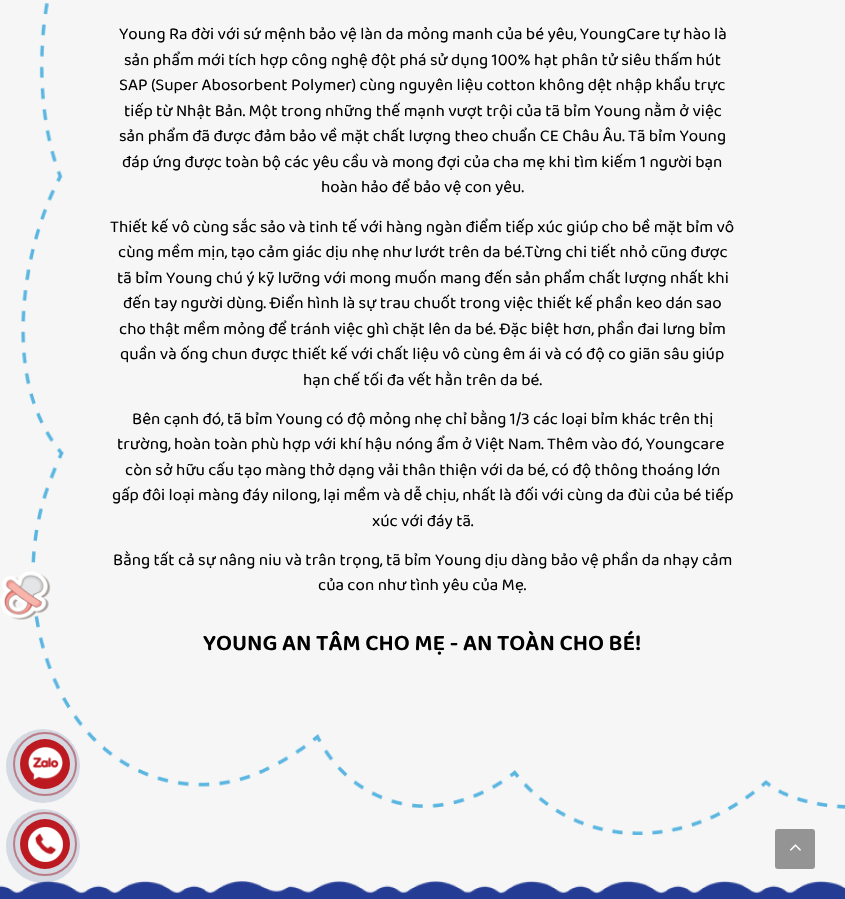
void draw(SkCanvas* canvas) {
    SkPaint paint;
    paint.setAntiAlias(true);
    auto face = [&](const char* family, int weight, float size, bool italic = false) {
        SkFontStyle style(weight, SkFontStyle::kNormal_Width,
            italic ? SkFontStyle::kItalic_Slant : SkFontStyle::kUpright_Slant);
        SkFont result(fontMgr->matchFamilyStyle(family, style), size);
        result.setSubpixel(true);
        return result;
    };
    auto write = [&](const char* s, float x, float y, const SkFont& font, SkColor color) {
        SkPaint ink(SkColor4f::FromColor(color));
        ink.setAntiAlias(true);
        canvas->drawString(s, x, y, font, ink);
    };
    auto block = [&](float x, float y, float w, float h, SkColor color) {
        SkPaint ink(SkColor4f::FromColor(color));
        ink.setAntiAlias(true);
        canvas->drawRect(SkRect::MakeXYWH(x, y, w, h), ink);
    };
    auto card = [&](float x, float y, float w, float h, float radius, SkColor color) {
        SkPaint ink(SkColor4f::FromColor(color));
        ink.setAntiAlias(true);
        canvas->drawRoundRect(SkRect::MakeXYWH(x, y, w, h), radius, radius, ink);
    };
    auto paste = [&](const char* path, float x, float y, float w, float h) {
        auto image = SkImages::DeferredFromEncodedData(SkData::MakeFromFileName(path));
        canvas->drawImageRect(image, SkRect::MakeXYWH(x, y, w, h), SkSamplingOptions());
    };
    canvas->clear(SkColorSetRGB(246, 246, 246));
    paste("pic1.png", 0, 3, 845, 832);
    auto kFont1 = face("Baloo Thambi 2", 400, 17);
    write("Young Ra đời với sứ mệnh bảo vệ làn da mỏng manh của bé yêu, YoungCare tự hào là", 119, 39, kFont1, SK_ColorBLACK);
    write("sản phẩm mới tích hợp công nghệ đột phá sử dụng 100% hạt phân tử siêu thấm hút", 124, 65, kFont1, SK_ColorBLACK);
    write("SAP (Super Abosorbent Polymer) cùng nguyên liệu cotton không dệt nhập khẩu trực", 119, 90, kFont1, SK_ColorBLACK);
    write("tiếp từ Nhật Bản. Một trong những thế mạnh vượt trội của tã bỉm Young nằm ở việc", 124, 116, kFont1, SK_ColorBLACK);
    write("sản phẩm đã được đảm bảo về mặt chất lượng theo chuẩn CE Châu Âu. Tã bỉm Young", 119, 141, kFont1, SK_ColorBLACK);
    write("đáp ứng được toàn bộ các yêu cầu và mong đợi của cha mẹ khi tìm kiếm 1 người bạn", 122, 167, kFont1, SK_ColorBLACK);
    write("hoàn hảo để bảo vệ con yêu.", 321, 192, kFont1, SK_ColorBLACK);
    write("Thiết kế vô cùng sắc sảo và tinh tế với hàng ngàn điểm tiếp xúc giúp cho bề mặt bỉm vô", 110, 232, kFont1, SK_ColorBLACK);
    write("cùng mềm mịn, tạo cảm giác dịu nhẹ như lướt trên da bé.Từng chi tiết nhỏ cũng được", 118, 257, kFont1, SK_ColorBLACK);
    write("tã bỉm Young chú ý kỹ lưỡng với mong muốn mang đến sản phẩm chất lượng nhất khi", 117, 283, kFont1, SK_ColorBLACK);
    write("đến tay người dùng. Điển hình là sự trau chuốt trong việc thiết kế phần keo dán sao", 123, 308, kFont1, SK_ColorBLACK);
    write("cho thật mềm mỏng để tránh việc ghì chặt lên da bé. Đặc biệt hơn, phần đai lưng bỉm", 119, 334, kFont1, SK_ColorBLACK);
    write("quần và ống chun được thiết kế với chất liệu vô cùng êm ái và có độ co giãn sâu giúp", 120, 359, kFont1, SK_ColorBLACK);
    write("hạn chế tối đa vết hằn trên da bé.", 303, 385, kFont1, SK_ColorBLACK);
    write("Bên cạnh đó, tã bỉm Young có độ mỏng nhẹ chỉ bằng 1/3 các loại bỉm khác trên thị", 132, 424, kFont1, SK_ColorBLACK);
    write("trường, hoàn toàn phù hợp với khí hậu nóng ẩm ở Việt Nam. Thêm vào đó, Youngcare", 117, 449, kFont1, SK_ColorBLACK);
    write("còn sở hữu cấu tạo màng thở dạng vải thân thiện với da bé, có độ thông thoáng lớn", 125, 475, kFont1, SK_ColorBLACK);
    write("gấp đôi loại màng đáy nilong, lại mềm và dễ chịu, nhất là đối với cùng da đùi của bé tiếp", 112, 500, kFont1, SK_ColorBLACK);
    write("xúc với đáy tã.", 372, 526, kFont1, SK_ColorBLACK);
    write("Bằng tất cả sự nâng niu và trân trọng, tã bỉm Young dịu dàng bảo vệ phần da nhạy cảm", 113, 565, kFont1, SK_ColorBLACK);
    write("của con như tình yêu của Mẹ.", 318, 590, kFont1, SK_ColorBLACK);
    auto kFont2 = face("Baloo Thambi 2", 600, 23);
    write("YOUNG AN TÂM CHO MẸ - AN TOÀN CHO BÉ!", 203, 650, kFont2, SK_ColorBLACK);
    paint.setStyle(SkPaint::kStroke_Style);
    paint.setStrokeWidth(2);
    paint.setColor(SkColorSetRGB(217, 136, 140));
    canvas->drawCircle(45, 764, 31, paint);
    paint.setStyle(SkPaint::kFill_Style);
    paint.setColor(SkColorSetARGB(36, 7, 41, 103));
    canvas->drawCircle(43, 766, 37, paint);
    paint.setColor(SkColorSetRGB(188, 25, 33));
    canvas->drawCircle(45, 764, 25, paint);
    paste("pic2.png", 28, 747, 35, 33);
    paint.setStyle(SkPaint::kStroke_Style);
    paint.setColor(SkColorSetRGB(217, 136, 140));
    canvas->drawCircle(45, 844, 31, paint);
    paste("pic5.png", 0, 881, 845, 14);
    paint.setStyle(SkPaint::kFill_Style);
    paint.setColor(SkColorSetARGB(36, 7, 41, 103));
    canvas->drawCircle(43, 846, 37, paint);
    paint.setColor(SkColorSetRGB(188, 25, 33));
    canvas->drawCircle(45, 844, 25, paint);
    paste("pic3.png", 28, 827, 35, 35);
    card(775, 829, 40, 40, 3, SkColorSetRGB(148, 148, 148));
    paste("pic4.png", 790, 844, 11, 7);
    block(0, 895, 845, 4, SkColorSetRGB(36, 60, 148));
}
